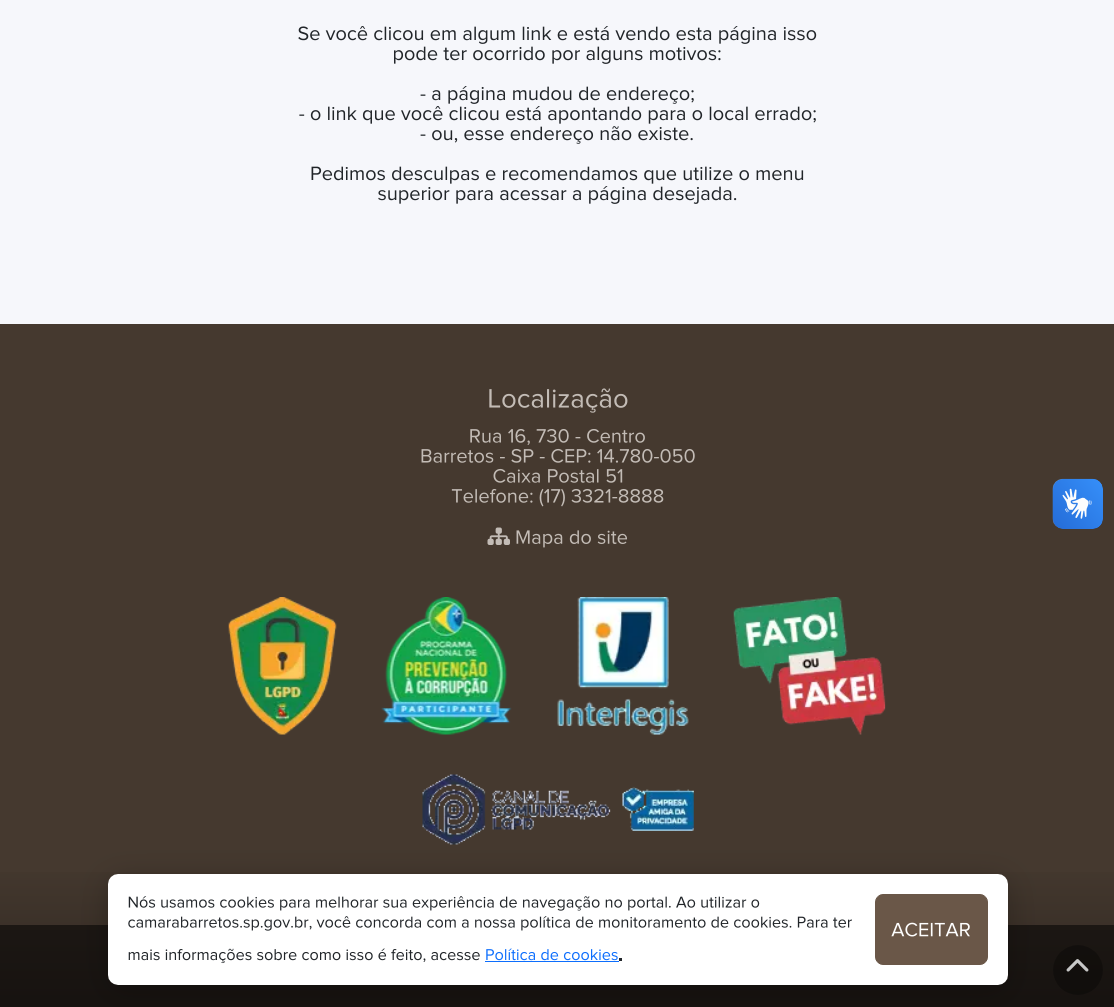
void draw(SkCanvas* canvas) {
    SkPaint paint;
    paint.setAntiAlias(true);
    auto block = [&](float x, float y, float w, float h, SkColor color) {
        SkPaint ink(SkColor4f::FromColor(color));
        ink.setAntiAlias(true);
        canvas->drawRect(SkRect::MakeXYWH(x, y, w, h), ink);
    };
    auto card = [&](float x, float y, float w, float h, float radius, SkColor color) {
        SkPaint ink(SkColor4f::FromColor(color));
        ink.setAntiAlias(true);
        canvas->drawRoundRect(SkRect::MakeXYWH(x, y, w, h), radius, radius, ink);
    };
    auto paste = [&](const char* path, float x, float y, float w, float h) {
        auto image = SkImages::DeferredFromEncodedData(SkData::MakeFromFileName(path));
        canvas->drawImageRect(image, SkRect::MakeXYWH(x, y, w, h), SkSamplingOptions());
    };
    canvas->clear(SkColorSetRGB(246, 247, 251));
    paste("pic1.png", 298, 26, 519, 18);
    paste("pic2.png", 394, 46, 327, 18);
    paste("pic3.png", 420, 86, 274, 18);
    paste("pic4.png", 299, 106, 517, 18);
    paste("pic5.png", 420, 126, 273, 18);
    paste("pic6.png", 311, 166, 493, 18);
    paste("pic7.png", 378, 186, 359, 18);
    block(0, 324, 1114, 601, SkColorSetRGB(69, 57, 47));
    paste("pic8.png", 489, 388, 139, 25);
    paste("pic9.png", 470, 429, 175, 16);
    paste("pic10.png", 421, 448, 274, 15);
    paste("pic11.png", 493, 468, 130, 15);
    paste("pic12.png", 451, 488, 213, 19);
    paste("pic13.png", 487, 527, 23, 18);
    paste("pic14.png", 516, 530, 111, 18);
    paste("pic15.png", 228, 597, 109, 138);
    paste("pic16.png", 381, 597, 131, 138);
    paste("pic17.png", 557, 597, 132, 138);
    paste("pic18.png", 733, 597, 153, 138);
    paste("pic19.png", 422, 774, 272, 71);
    block(0, 925, 1114, 82, SkColorSetRGB(32, 26, 22));
    paste("pic20.png", 1052, 478, 51, 51);
    paste("pic21.png", 1053, 479, 50, 50);
    paint.setColor(SkColorSetRGB(22, 18, 15));
    canvas->drawCircle(1078, 970, 25, paint);
    paste("pic27.png", 1066, 959, 23, 13);
    {
        const SkColor colors[] = {SkColorSetARGB(0, 0, 0, 0), SkColorSetARGB(77, 0, 0, 0)};
        const float stops[] = {0, 1};
        const SkPoint ends[] = {{558, 853}, {558, 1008}};
        paint.setShader(SkGradientShader::MakeLinear(ends, colors, stops, 2, SkTileMode::kClamp));
        paint.setAlpha(255);
    }
    canvas->drawRect(SkRect::MakeXYWH(0, 872, 1114, 135), paint);
    paint.setShader(nullptr);
    paint.setColor(SkColorSetARGB(64, 0, 0, 0));
    paint.setMaskFilter(SkMaskFilter::MakeBlur(kNormal_SkBlurStyle, 15.5f));
    canvas->drawRoundRect(SkRect::MakeXYWH(108, 880, 900, 111), 10, 10, paint);
    paint.setMaskFilter(nullptr);
    card(108, 874, 900, 111, 10, SK_ColorWHITE);
    paste("pic22.png", 128, 896, 632, 15);
    paste("pic23.png", 128, 916, 724, 15);
    paste("pic24.png", 128, 948, 352, 16);
    paste("pic25.png", 486, 948, 132, 13);
    block(485, 961, 134, 1, SkColorSetRGB(13, 110, 253));
    block(619, 958, 3, 3, SkColorSetRGB(35, 39, 43));
    paint.setColor(SkColorSetRGB(106, 87, 72));
    canvas->drawRoundRect(SkRect::MakeXYWH(875.5f, 894.5f, 112, 70), 7.5f, 7.5f, paint);
    paint.setStyle(SkPaint::kStroke_Style);
    paint.setStrokeWidth(1);
    canvas->drawRoundRect(SkRect::MakeXYWH(875.5f, 894.5f, 112, 70), 7.5f, 7.5f, paint);
    paste("pic26.png", 891, 922, 79, 15);
}
